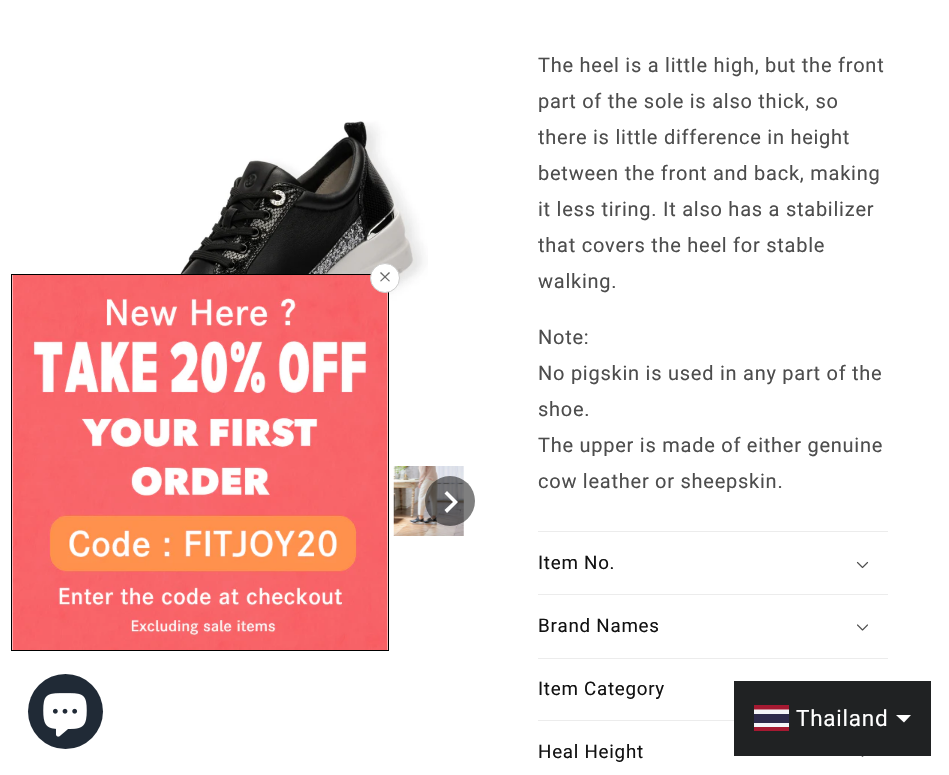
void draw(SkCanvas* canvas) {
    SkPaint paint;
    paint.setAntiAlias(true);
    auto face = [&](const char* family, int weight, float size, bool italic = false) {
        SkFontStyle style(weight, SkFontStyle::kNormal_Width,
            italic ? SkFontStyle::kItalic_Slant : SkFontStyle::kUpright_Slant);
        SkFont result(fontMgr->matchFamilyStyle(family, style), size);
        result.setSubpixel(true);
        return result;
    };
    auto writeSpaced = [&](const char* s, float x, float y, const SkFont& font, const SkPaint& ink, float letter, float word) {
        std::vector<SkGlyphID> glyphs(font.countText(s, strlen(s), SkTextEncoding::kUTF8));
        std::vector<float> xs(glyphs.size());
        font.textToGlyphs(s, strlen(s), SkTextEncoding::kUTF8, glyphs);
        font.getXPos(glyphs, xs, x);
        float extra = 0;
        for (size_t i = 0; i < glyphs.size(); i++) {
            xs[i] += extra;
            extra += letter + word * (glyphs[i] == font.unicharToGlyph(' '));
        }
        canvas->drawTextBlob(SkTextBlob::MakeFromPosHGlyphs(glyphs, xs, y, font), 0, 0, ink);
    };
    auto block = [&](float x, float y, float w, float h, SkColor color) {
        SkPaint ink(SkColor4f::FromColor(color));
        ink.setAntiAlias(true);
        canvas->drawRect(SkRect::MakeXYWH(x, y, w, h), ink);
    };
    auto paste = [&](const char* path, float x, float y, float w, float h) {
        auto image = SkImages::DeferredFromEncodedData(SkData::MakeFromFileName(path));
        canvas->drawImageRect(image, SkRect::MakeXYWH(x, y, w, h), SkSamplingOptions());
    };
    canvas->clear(SK_ColorWHITE);
    paste("pic2.png", 124, 120, 304, 256);
    paint.setStyle(SkPaint::kStroke_Style);
    paint.setStrokeWidth(1);
    paint.setColor(SK_ColorBLACK);
    canvas->drawRect(SkRect::MakeXYWH(11.5f, 274.5f, 377, 376), paint);
    paste("pic1.png", 12, 275, 376, 375);
    paint.setStyle(SkPaint::kFill_Style);
    paint.setColor(SK_ColorWHITE);
    canvas->drawCircle(385, 278, 14.5f, paint);
    paint.setStyle(SkPaint::kStroke_Style);
    paint.setColor(SkColorSetRGB(204, 204, 204));
    canvas->drawCircle(385, 278, 14.5f, paint);
    paint.setStyle(SkPaint::kFill_Style);
    paint.setColor(SkColorSetRGB(102, 102, 102));
    canvas->drawPath(SkPathBuilder().moveTo(381, 272).lineTo(390, 281).lineTo(389, 281.5f).lineTo(380, 273).close().detach(), paint);
    canvas->drawPath(SkPathBuilder().moveTo(380, 281).lineTo(389, 272).lineTo(390, 273).lineTo(381, 281.5f).close().detach(), paint);
    paste("pic3.png", 393, 466, 71, 70);
    paint.setColor(SkColorSetARGB(128, 0, 0, 0));
    canvas->drawCircle(450, 501, 25, paint);
    paint.setColor(SK_ColorWHITE);
    canvas->drawPath(SkPathBuilder().moveTo(444.5f, 510).lineTo(453, 502).lineTo(444.5f, 493.5f).lineTo(447, 491).lineTo(458, 502).lineTo(447, 513).close().detach(), paint);
    auto kFont1 = face("Roboto", 400, 20);
    paint.setColor(SkColorSetRGB(77, 77, 77));
    writeSpaced("The heel is a little high, but the front", 538, 72, kFont1, paint, 0.75f, 0);
    writeSpaced("part of the sole is also thick, so", 538, 108, kFont1, paint, 0.75f, 0);
    writeSpaced("there is little difference in height", 538, 144, kFont1, paint, 0.75f, 0);
    writeSpaced("between the front and back, making", 538, 180, kFont1, paint, 0.75f, 0);
    writeSpaced("it less tiring. It also has a stabilizer", 538, 216, kFont1, paint, 0.75f, 0);
    writeSpaced("that covers the heel for stable", 538, 252, kFont1, paint, 0.75f, 0);
    writeSpaced("walking.", 538, 288, kFont1, paint, 0.75f, 0);
    writeSpaced("Note:", 538, 344, kFont1, paint, 0.75f, 0);
    writeSpaced("No pigskin is used in any part of the", 538, 380, kFont1, paint, 0.75f, 0);
    writeSpaced("shoe.", 538, 416, kFont1, paint, 0.75f, 0);
    writeSpaced("The upper is made of either genuine", 538, 452, kFont1, paint, 0.75f, 0);
    writeSpaced("cow leather or sheepskin.", 538, 488, kFont1, paint, 0.75f, 0);
    block(538, 531, 350, 1, SkColorSetRGB(236, 236, 236));
    block(538, 594, 350, 1, SkColorSetRGB(236, 236, 236));
    auto kFont2 = face("Roboto", 400, 18.75f);
    paint.setColor(SkColorSetRGB(18, 18, 18));
    writeSpaced("Item No.", 538, 569, kFont2, paint, 0.75f, 0);
    paste("pic4.png", 856, 561, 13, 8);
    block(538, 658, 350, 1, SkColorSetRGB(236, 236, 236));
    writeSpaced("Brand Names", 538, 632, kFont2, paint, 0.75f, 0);
    paste("pic5.png", 857, 624, 11, 7);
    block(538, 720, 196, 1, SkColorSetRGB(236, 236, 236));
    writeSpaced("Item Category", 538, 695, kFont2, paint, 0.75f, 0);
    writeSpaced("Heal Height", 538, 758, kFont2, paint, 0.75f, 0);
    paste("pic6.png", 861, 756, 3, 1);
    paint.setColor(SkColorSetRGB(32, 42, 54));
    canvas->drawCircle(65.5f, 711.5f, 37.5f, paint);
    paste("pic7.png", 43, 693, 44, 44);
    block(734, 681, 197, 75, SkColorSetRGB(32, 34, 35));
    block(754, 709, 35, 18, SkColorSetRGB(244, 245, 248));
    block(754, 714, 35, 9, SkColorSetRGB(45, 42, 74));
    paint.setColor(SkColorSetRGB(165, 25, 49));
    canvas->drawPath(SkPathBuilder(SkPathFillType::kEvenOdd).moveTo(754, 705).lineTo(789, 705).lineTo(789, 709.5f).lineTo(754, 709.5f).close().moveTo(754, 727).lineTo(789, 727).lineTo(789, 731).lineTo(754, 731).close().detach(), paint);
    auto kFont3 = face("Roboto", 400, 22.5f);
    paint.setColor(SK_ColorWHITE);
    writeSpaced("Thailand", 796, 726, kFont3, paint, 0.75f, 0);
    canvas->drawPath(SkPathBuilder().moveTo(896, 715).lineTo(911, 715).lineTo(904, 722.5f).close().detach(), paint);
}
